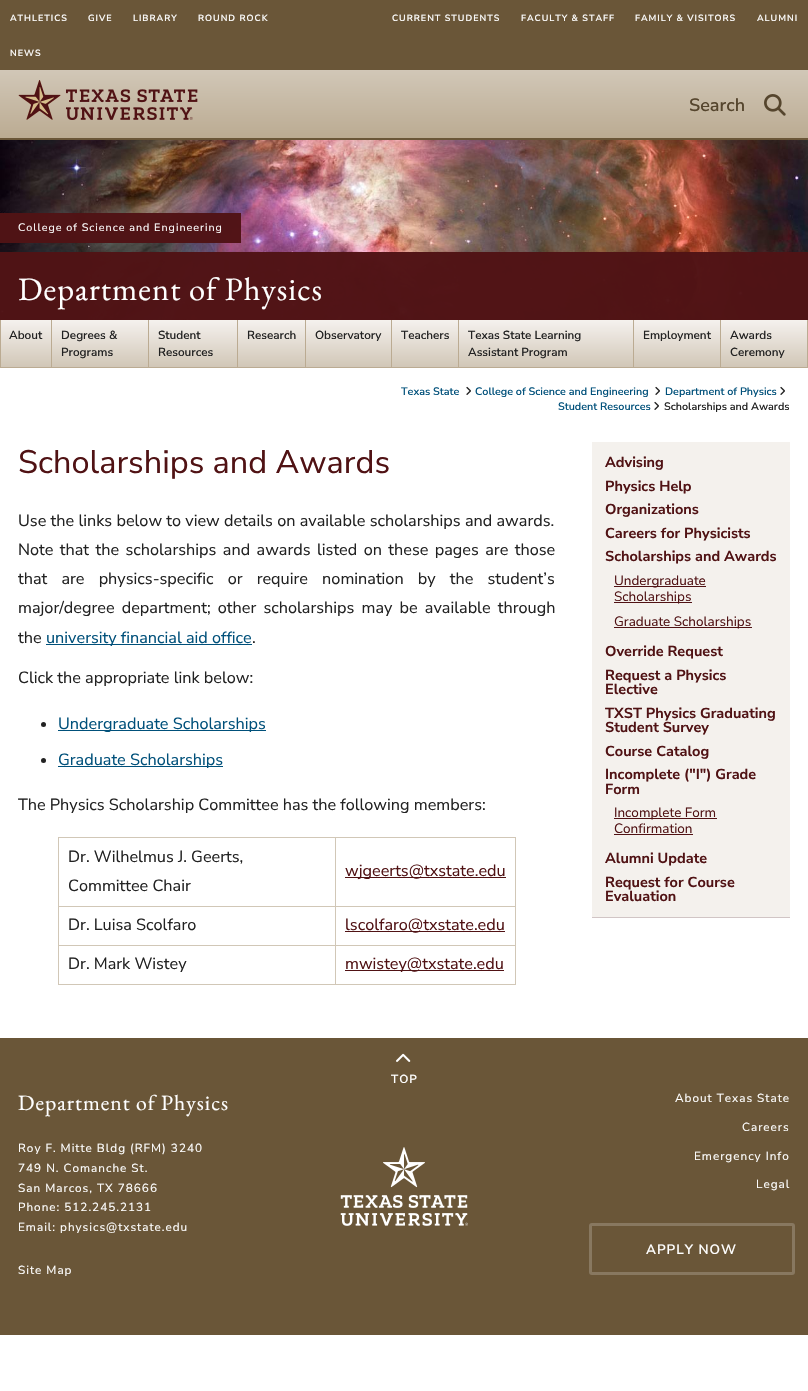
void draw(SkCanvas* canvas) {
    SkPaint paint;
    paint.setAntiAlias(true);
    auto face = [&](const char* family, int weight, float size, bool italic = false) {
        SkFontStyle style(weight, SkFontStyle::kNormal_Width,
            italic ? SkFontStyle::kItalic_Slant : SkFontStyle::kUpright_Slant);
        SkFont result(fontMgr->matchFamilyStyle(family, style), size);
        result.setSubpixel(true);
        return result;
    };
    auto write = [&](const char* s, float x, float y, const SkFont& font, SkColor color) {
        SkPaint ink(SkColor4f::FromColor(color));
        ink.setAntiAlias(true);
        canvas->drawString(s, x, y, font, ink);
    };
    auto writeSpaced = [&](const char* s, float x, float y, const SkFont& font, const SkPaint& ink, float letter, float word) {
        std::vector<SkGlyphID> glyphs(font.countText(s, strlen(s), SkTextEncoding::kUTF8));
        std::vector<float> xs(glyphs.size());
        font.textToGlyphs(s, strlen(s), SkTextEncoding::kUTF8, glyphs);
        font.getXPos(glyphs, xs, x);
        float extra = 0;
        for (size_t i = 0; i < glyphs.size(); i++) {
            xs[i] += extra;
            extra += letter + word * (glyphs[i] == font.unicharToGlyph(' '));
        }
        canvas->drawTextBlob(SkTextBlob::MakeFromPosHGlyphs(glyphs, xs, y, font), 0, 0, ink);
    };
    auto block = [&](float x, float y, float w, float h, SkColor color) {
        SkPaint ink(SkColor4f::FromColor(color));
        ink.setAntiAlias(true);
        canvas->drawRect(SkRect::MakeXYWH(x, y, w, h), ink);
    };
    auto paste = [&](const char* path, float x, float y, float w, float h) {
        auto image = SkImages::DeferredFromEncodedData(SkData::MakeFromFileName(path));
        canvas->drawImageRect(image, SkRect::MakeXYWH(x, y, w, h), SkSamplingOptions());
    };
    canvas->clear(SK_ColorWHITE);
    block(0, 0, 808, 70, SkColorSetRGB(106, 86, 56));
    auto kFont1 = face("Nunito Sans", 600, 9);
    paint.setColor(SK_ColorWHITE);
    writeSpaced("ATHLETICS", 10, 21, kFont1, paint, 1, 0);
    writeSpaced("GIVE", 88, 21, kFont1, paint, 1, 0);
    writeSpaced("LIBRARY", 133, 21, kFont1, paint, 1, 0);
    writeSpaced("ROUND ROCK", 198, 21, kFont1, paint, 1, 0);
    writeSpaced("NEWS", 10, 56, kFont1, paint, 1, 0);
    writeSpaced("CURRENT STUDENTS", 392, 21, kFont1, paint, 1, 0);
    writeSpaced("FACULTY & STAFF", 521, 21, kFont1, paint, 1, 0);
    writeSpaced("FAMILY & VISITORS", 635, 21, kFont1, paint, 1, 0);
    writeSpaced("ALUMNI", 757, 21, kFont1, paint, 1, 0);
    {
        const SkColor colors[] = {SkColorSetRGB(209, 199, 183), SkColorSetRGB(187, 171, 146)};
        const float stops[] = {0, 1};
        const SkPoint ends[] = {{404, 70}, {404, 138}};
        paint.setShader(SkGradientShader::MakeLinear(ends, colors, stops, 2, SkTileMode::kClamp));
        paint.setAlpha(255);
    }
    canvas->drawRect(SkRect::MakeXYWH(0, 70, 808, 68), paint);
    block(0, 138, 808, 2, SkColorSetRGB(106, 86, 56));
    paste("pic1.png", 18, 80, 180, 40);
    auto kFont2 = face("Nunito Sans", 600, 18);
    write("Search", 689, 111, kFont2, SkColorSetRGB(85, 69, 45));
    paste("pic2.png", 764, 94, 22, 22);
    paste("pic3.png", 0, 140, 808, 180);
    block(0, 213, 241, 30, SkColorSetARGB(250, 80, 18, 20));
    auto kFont3 = face("Nunito Sans", 400, 10.8f);
    paint.setShader(nullptr);
    paint.setColor(SK_ColorWHITE);
    writeSpaced("College of Science and Engineering", 18, 231, kFont3, paint, 1, 0);
    block(0, 252, 808, 68, SkColorSetARGB(250, 80, 18, 20));
    auto kFont4 = face("EB Garamond", 400, 32.5f);
    writeSpaced("Department of Physics", 18, 300, kFont4, paint, 1, 0);
    {
        const SkColor colors[] = {SkColorSetRGB(245, 241, 238), SkColorSetRGB(209, 199, 183)};
        const float stops[] = {0, 1};
        const SkPoint ends[] = {{404, 320}, {404, 367}};
        paint.setShader(SkGradientShader::MakeLinear(ends, colors, stops, 2, SkTileMode::kClamp));
        paint.setAlpha(255);
    }
    canvas->drawRect(SkRect::MakeXYWH(1, 320, 806, 47), paint);
    block(807, 320, 1, 47, SkColorSetRGB(187, 171, 146));
    block(0, 320, 1, 47, SkColorSetRGB(187, 171, 146));
    block(0, 367, 808, 1, SkColorSetRGB(187, 171, 146));
    auto kFont5 = face("Nunito Sans", 600, 11.75f);
    write("About", 9, 339, kFont5, SkColorSetRGB(34, 34, 34));
    block(51, 320, 1, 47, SkColorSetRGB(187, 171, 146));
    write("Degrees &", 61, 339, kFont5, SkColorSetRGB(34, 34, 34));
    write("Programs", 61, 356, kFont5, SkColorSetRGB(34, 34, 34));
    block(148, 320, 1, 47, SkColorSetRGB(187, 171, 146));
    write("Student", 158, 339, kFont5, SkColorSetRGB(34, 34, 34));
    write("Resources", 158, 356, kFont5, SkColorSetRGB(34, 34, 34));
    block(237, 320, 1, 47, SkColorSetRGB(187, 171, 146));
    write("Research", 247, 339, kFont5, SkColorSetRGB(34, 34, 34));
    block(305, 320, 1, 47, SkColorSetRGB(187, 171, 146));
    write("Observatory", 315, 339, kFont5, SkColorSetRGB(34, 34, 34));
    block(391, 320, 1, 47, SkColorSetRGB(187, 171, 146));
    write("Teachers", 401, 339, kFont5, SkColorSetRGB(34, 34, 34));
    block(458, 320, 1, 47, SkColorSetRGB(187, 171, 146));
    write("Texas State Learning", 468, 339, kFont5, SkColorSetRGB(34, 34, 34));
    write("Assistant Program", 468, 356, kFont5, SkColorSetRGB(34, 34, 34));
    block(633, 320, 1, 47, SkColorSetRGB(187, 171, 146));
    write("Employment", 643, 339, kFont5, SkColorSetRGB(34, 34, 34));
    block(720, 320, 1, 47, SkColorSetRGB(187, 171, 146));
    write("Awards", 730, 339, kFont5, SkColorSetRGB(34, 34, 34));
    write("Ceremony", 730, 356, kFont5, SkColorSetRGB(34, 34, 34));
    auto kFont6 = face("Nunito Sans", 600, 10.8f);
    write("Texas State", 401, 395, kFont6, SkColorSetRGB(0, 80, 122));
    paste("pic4.png", 466, 386, 5, 9);
    write("College of Science and Engineering", 475, 395, kFont6, SkColorSetRGB(0, 80, 122));
    paste("pic4.png", 655, 386, 5, 9);
    write("Department of Physics", 665, 395, kFont6, SkColorSetRGB(0, 80, 122));
    paste("pic4.png", 780, 386, 5, 9);
    write("Student Resources", 558, 410, kFont6, SkColorSetRGB(0, 80, 122));
    paste("pic4.png", 654, 401, 5, 9);
    write("Scholarships and Awards", 664, 410, kFont6, SkColorSetRGB(34, 34, 34));
    auto kFont7 = face("Nunito Sans", 400, 32.5f);
    write("Scholarships and Awards", 18, 473, kFont7, SkColorSetRGB(80, 18, 20));
    auto kFont8 = face("Nunito Sans", 400, 16.25f);
    paint.setShader(nullptr);
    paint.setColor(SkColorSetRGB(34, 34, 34));
    writeSpaced("Use the links below to view details on available scholarships and awards.", 18, 526, kFont8, paint, 0, 0.1f);
    writeSpaced("Note that the scholarships and awards listed on these pages are those", 18, 555, kFont8, paint, 0, 2.25f);
    writeSpaced("that are physics-specific or require nomination by the student’s", 18, 584, kFont8, paint, 0, 10);
    writeSpaced("major/degree department; other scholarships may be available through", 18, 613, kFont8, paint, 0, 3);
    write("the", 18, 643, kFont8, SkColorSetRGB(34, 34, 34));
    block(46, 644, 206, 1, SkColorSetRGB(0, 80, 122));
    write("university financial aid office", 46, 643, kFont8, SkColorSetRGB(0, 80, 122));
    write(".", 252, 643, kFont8, SkColorSetRGB(34, 34, 34));
    write("Click the appropriate link below:", 18, 683, kFont8, SkColorSetRGB(34, 34, 34));
    canvas->drawCircle(43.5f, 724.5f, 2.5f, paint);
    block(58, 730, 208, 1, SkColorSetRGB(0, 80, 122));
    write("Undergraduate Scholarships", 58, 729, kFont8, SkColorSetRGB(0, 80, 122));
    canvas->drawCircle(43.5f, 760.5f, 2.5f, paint);
    block(58, 766, 165, 1, SkColorSetRGB(0, 80, 122));
    write("Graduate Scholarships", 58, 765, kFont8, SkColorSetRGB(0, 80, 122));
    write("The Physics Scholarship Committee has the following members:", 18, 810, kFont8, SkColorSetRGB(34, 34, 34));
    block(335, 837, 181, 1, SkColorSetRGB(209, 199, 183));
    block(335, 906, 181, 1, SkColorSetRGB(209, 199, 183));
    block(335, 945, 181, 1, SkColorSetRGB(209, 199, 183));
    block(515, 945, 1, 40, SkColorSetRGB(209, 199, 183));
    block(335, 984, 181, 1, SkColorSetRGB(209, 199, 183));
    block(335, 945, 1, 40, SkColorSetRGB(209, 199, 183));
    block(58, 945, 278, 1, SkColorSetRGB(209, 199, 183));
    block(335, 906, 1, 40, SkColorSetRGB(209, 199, 183));
    block(58, 906, 278, 1, SkColorSetRGB(209, 199, 183));
    block(335, 837, 1, 70, SkColorSetRGB(209, 199, 183));
    block(58, 837, 278, 1, SkColorSetRGB(209, 199, 183));
    block(58, 984, 278, 1, SkColorSetRGB(209, 199, 183));
    block(58, 945, 1, 40, SkColorSetRGB(209, 199, 183));
    block(58, 906, 1, 40, SkColorSetRGB(209, 199, 183));
    block(58, 837, 1, 70, SkColorSetRGB(209, 199, 183));
    write("Dr. Wilhelmus J. Geerts,", 68, 862, kFont8, SkColorSetRGB(34, 34, 34));
    write("Committee Chair", 68, 891, kFont8, SkColorSetRGB(34, 34, 34));
    block(515, 906, 1, 40, SkColorSetRGB(209, 199, 183));
    block(515, 837, 1, 70, SkColorSetRGB(209, 199, 183));
    block(345, 877, 161, 1, SkColorSetRGB(80, 18, 20));
    write("wjgeerts@txstate.edu", 345, 876, kFont8, SkColorSetRGB(80, 18, 20));
    write("Dr. Luisa Scolfaro", 68, 930, kFont8, SkColorSetRGB(34, 34, 34));
    block(345, 931, 160, 1, SkColorSetRGB(80, 18, 20));
    write("lscolfaro@txstate.edu", 345, 930, kFont8, SkColorSetRGB(80, 18, 20));
    write("Dr. Mark Wistey", 68, 969, kFont8, SkColorSetRGB(34, 34, 34));
    block(345, 970, 159, 1, SkColorSetRGB(80, 18, 20));
    write("mwistey@txstate.edu", 345, 969, kFont8, SkColorSetRGB(80, 18, 20));
    block(592, 442, 198, 475, SkColorSetRGB(244, 241, 237));
    block(592, 917, 198, 1, SkColorSetRGB(209, 197, 197));
    auto kFont9 = face("Nunito Sans", 700, 14.5f);
    write("Advising", 605, 467, kFont9, SkColorSetRGB(80, 18, 20));
    write("Physics Help", 605, 491, kFont9, SkColorSetRGB(80, 18, 20));
    write("Organizations", 605, 514, kFont9, SkColorSetRGB(80, 18, 20));
    write("Careers for Physicists", 605, 538, kFont9, SkColorSetRGB(80, 18, 20));
    write("Scholarships and Awards", 605, 561, kFont9, SkColorSetRGB(80, 18, 20));
    block(614, 586, 92, 1, SkColorSetRGB(80, 18, 20));
    auto kFont10 = face("Nunito Sans", 400, 13.5f);
    write("Undergraduate", 614, 585, kFont10, SkColorSetRGB(80, 18, 20));
    block(614, 602, 78, 1, SkColorSetRGB(80, 18, 20));
    write("Scholarships", 614, 601, kFont10, SkColorSetRGB(80, 18, 20));
    block(614, 627, 138, 1, SkColorSetRGB(80, 18, 20));
    write("Graduate Scholarships", 614, 626, kFont10, SkColorSetRGB(80, 18, 20));
    write("Override Request", 605, 656, kFont9, SkColorSetRGB(80, 18, 20));
    write("Request a Physics", 605, 680, kFont9, SkColorSetRGB(80, 18, 20));
    write("Elective", 605, 694, kFont9, SkColorSetRGB(80, 18, 20));
    write("TXST Physics Graduating", 605, 718, kFont9, SkColorSetRGB(80, 18, 20));
    write("Student Survey", 605, 732, kFont9, SkColorSetRGB(80, 18, 20));
    write("Course Catalog", 605, 756, kFont9, SkColorSetRGB(80, 18, 20));
    write("Incomplete (\"I\") Grade", 605, 779, kFont9, SkColorSetRGB(80, 18, 20));
    write("Form", 605, 794, kFont9, SkColorSetRGB(80, 18, 20));
    block(614, 818, 103, 1, SkColorSetRGB(80, 18, 20));
    write("Incomplete Form", 614, 817, kFont10, SkColorSetRGB(80, 18, 20));
    write("Confirmation", 614, 833, kFont10, SkColorSetRGB(80, 18, 20));
    block(614, 834, 79, 1, SkColorSetRGB(80, 18, 20));
    write("Alumni Update", 605, 863, kFont9, SkColorSetRGB(80, 18, 20));
    write("Request for Course", 605, 887, kFont9, SkColorSetRGB(80, 18, 20));
    write("Evaluation", 605, 901, kFont9, SkColorSetRGB(80, 18, 20));
    block(0, 1038, 808, 297, SkColorSetRGB(106, 86, 56));
    paste("pic5.png", 396, 1053, 15, 9);
    paint.setColor(SK_ColorWHITE);
    writeSpaced("TOP", 391, 1083, kFont5, paint, 1, 0);
    auto kFont11 = face("EB Garamond", 400, 21.75f);
    writeSpaced("Department of Physics", 18, 1110, kFont11, paint, 1, 0);
    auto kFont12 = face("Nunito Sans", 400, 11.75f);
    writeSpaced("Roy F. Mitte Bldg (RFM) 3240", 18, 1152, kFont12, paint, 1, 0);
    writeSpaced("749 N. Comanche St.", 18, 1172, kFont12, paint, 1, 0);
    writeSpaced("San Marcos, TX 78666", 18, 1192, kFont12, paint, 1, 0);
    writeSpaced("Phone: 512.245.2131", 18, 1211, kFont12, paint, 1, 0);
    writeSpaced("Email: physics@txstate.edu", 18, 1231, kFont12, paint, 1, 0);
    writeSpaced("Site Map", 18, 1274, kFont12, paint, 1, 0);
    paste("pic6.png", 340, 1147, 128, 79);
    writeSpaced("About Texas State", 675, 1102, kFont12, paint, 1, 0);
    writeSpaced("Careers", 742, 1131, kFont12, paint, 1, 0);
    writeSpaced("Emergency Info", 694, 1160, kFont12, paint, 1, 0);
    writeSpaced("Legal", 756, 1188, kFont12, paint, 1, 0);
    paint.setStyle(SkPaint::kStroke_Style);
    paint.setStrokeWidth(3);
    paint.setColor(SkColorSetRGB(136, 120, 96));
    canvas->drawRoundRect(SkRect::MakeXYWH(590.5f, 1224.5f, 203, 49), 1.5f, 1.5f, paint);
    auto kFont13 = face("Nunito Sans", 600, 13.5f);
    paint.setStyle(SkPaint::kFill_Style);
    paint.setColor(SK_ColorWHITE);
    writeSpaced("APPLY NOW", 646, 1254, kFont13, paint, 1, 0);
}
